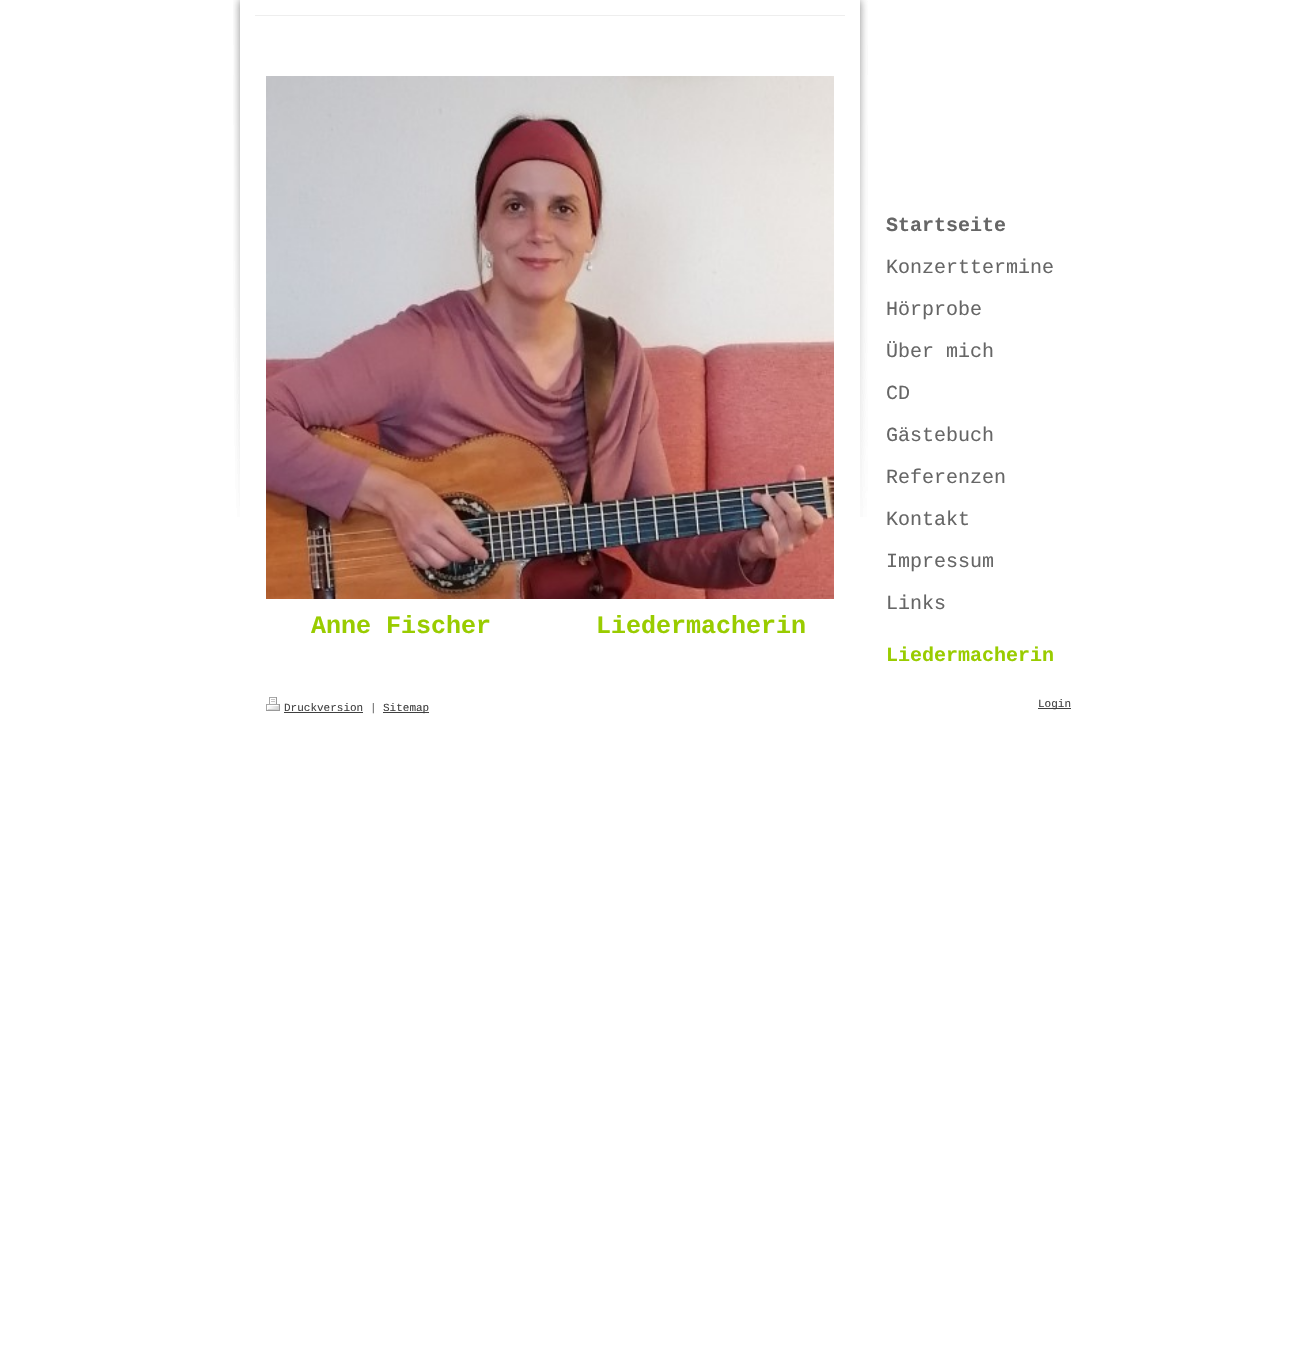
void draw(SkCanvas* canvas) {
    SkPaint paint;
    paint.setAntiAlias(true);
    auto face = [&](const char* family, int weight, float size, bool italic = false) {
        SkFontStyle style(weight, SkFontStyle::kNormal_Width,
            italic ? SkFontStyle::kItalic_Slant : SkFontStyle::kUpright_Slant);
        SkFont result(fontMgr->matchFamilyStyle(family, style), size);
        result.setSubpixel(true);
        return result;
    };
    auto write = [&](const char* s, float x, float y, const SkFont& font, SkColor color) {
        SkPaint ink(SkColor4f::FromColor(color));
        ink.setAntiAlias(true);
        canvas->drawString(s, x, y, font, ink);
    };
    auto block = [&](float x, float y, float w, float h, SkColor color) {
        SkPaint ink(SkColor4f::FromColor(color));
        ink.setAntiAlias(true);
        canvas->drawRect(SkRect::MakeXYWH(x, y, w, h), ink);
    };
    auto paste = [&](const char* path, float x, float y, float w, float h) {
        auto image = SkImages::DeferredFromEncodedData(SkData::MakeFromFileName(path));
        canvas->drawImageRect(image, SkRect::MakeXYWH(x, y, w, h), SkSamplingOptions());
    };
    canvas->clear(SK_ColorWHITE);
    paste("pic1.png", 233, 0, 635, 517);
    block(255, 15, 590, 1, SkColorSetRGB(238, 238, 238));
    paste("pic2.png", 266, 76, 568, 523);
    auto kFont1 = face("Liberation Mono", 700, 25);
    write("Anne Fischer       Liedermacherin", 311, 633, kFont1, SkColorSetRGB(153, 204, 0));
    auto kFont2 = face("Liberation Mono", 700, 20);
    write("Startseite", 886, 231, kFont2, SkColorSetRGB(102, 102, 102));
    auto kFont3 = face("Liberation Mono", 400, 20);
    write("Konzerttermine", 886, 273, kFont3, SkColorSetRGB(102, 102, 102));
    write("Hörprobe", 886, 315, kFont3, SkColorSetRGB(102, 102, 102));
    write("Über mich", 886, 357, kFont3, SkColorSetRGB(102, 102, 102));
    write("CD", 886, 399, kFont3, SkColorSetRGB(102, 102, 102));
    write("Gästebuch", 886, 441, kFont3, SkColorSetRGB(102, 102, 102));
    write("Referenzen", 886, 483, kFont3, SkColorSetRGB(102, 102, 102));
    write("Kontakt", 886, 525, kFont3, SkColorSetRGB(102, 102, 102));
    write("Impressum", 886, 567, kFont3, SkColorSetRGB(102, 102, 102));
    write("Links", 886, 609, kFont3, SkColorSetRGB(102, 102, 102));
    write("Liedermacherin", 886, 661, kFont2, SkColorSetRGB(153, 204, 0));
    paste("pic3.png", 266, 697, 14, 14);
    auto kFont4 = face("Liberation Mono", 400, 11);
    write("Druckversion", 284, 711, kFont4, SkColorSetRGB(64, 64, 64));
    block(284, 712, 79, 1, SkColorSetRGB(64, 64, 64));
    write("|", 370, 711, kFont4, SkColorSetRGB(102, 102, 102));
    block(383, 712, 46, 1, SkColorSetRGB(64, 64, 64));
    write("Sitemap", 383, 711, kFont4, SkColorSetRGB(64, 64, 64));
    block(1038, 708, 33, 1, SkColorSetRGB(64, 64, 64));
    write("Login", 1038, 707, kFont4, SkColorSetRGB(64, 64, 64));
}
